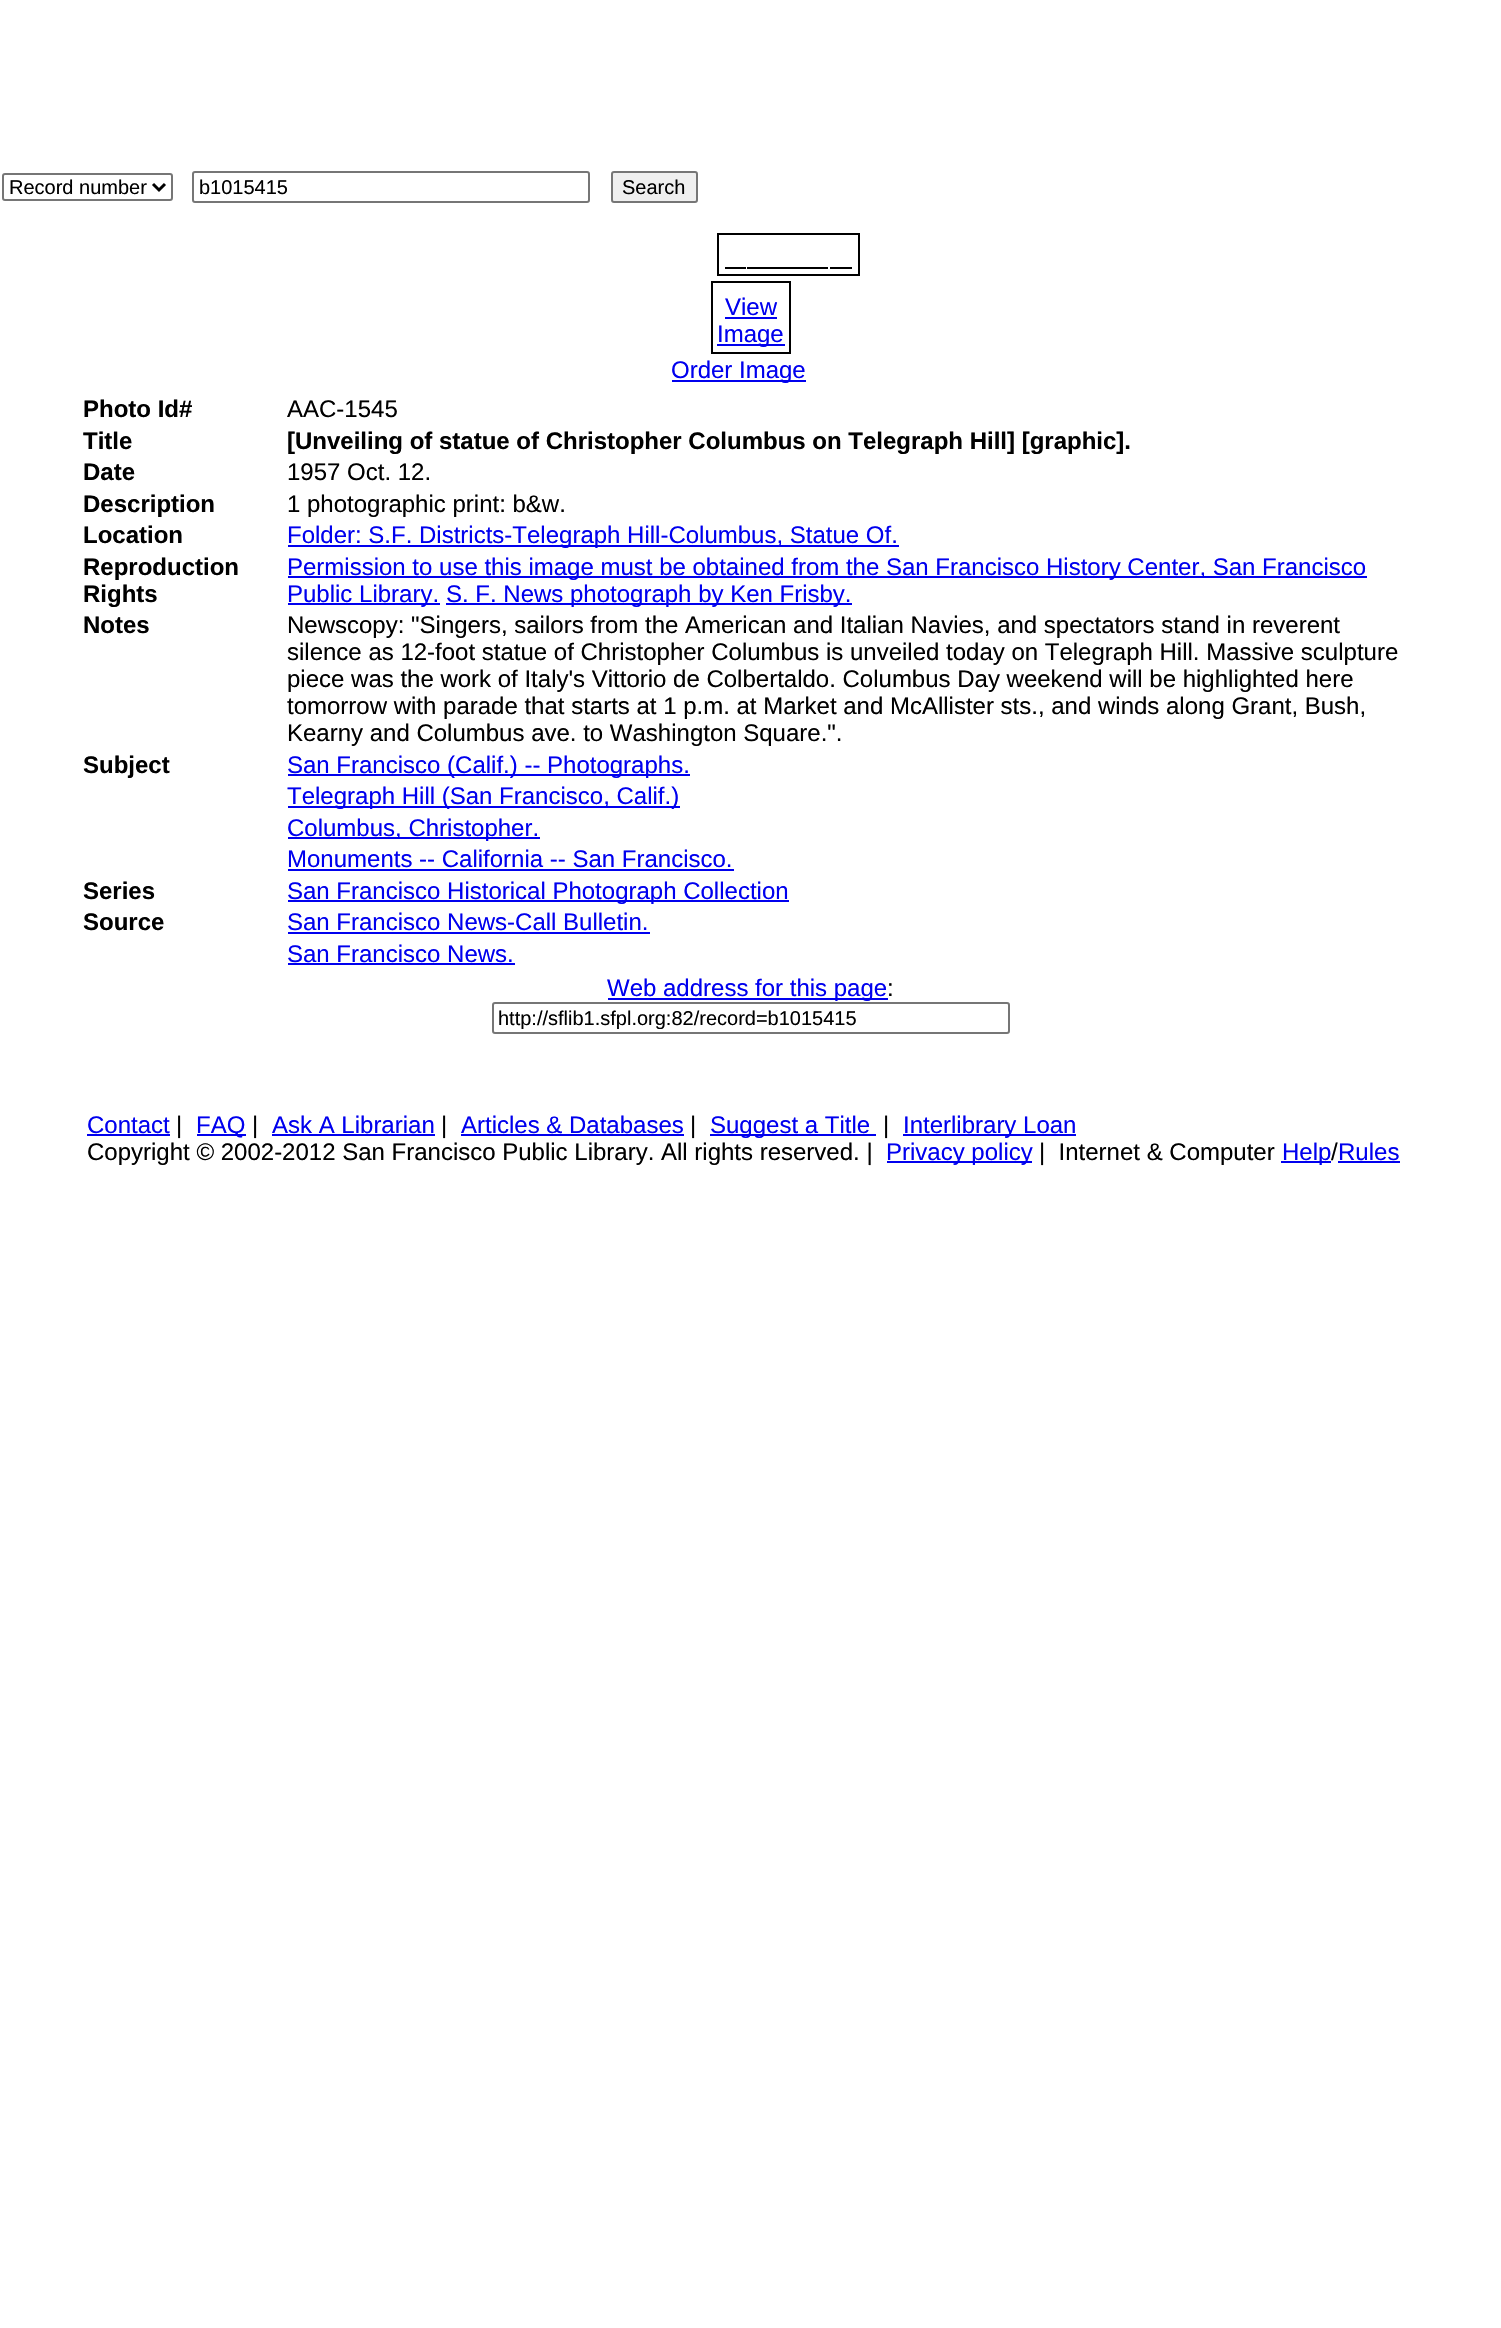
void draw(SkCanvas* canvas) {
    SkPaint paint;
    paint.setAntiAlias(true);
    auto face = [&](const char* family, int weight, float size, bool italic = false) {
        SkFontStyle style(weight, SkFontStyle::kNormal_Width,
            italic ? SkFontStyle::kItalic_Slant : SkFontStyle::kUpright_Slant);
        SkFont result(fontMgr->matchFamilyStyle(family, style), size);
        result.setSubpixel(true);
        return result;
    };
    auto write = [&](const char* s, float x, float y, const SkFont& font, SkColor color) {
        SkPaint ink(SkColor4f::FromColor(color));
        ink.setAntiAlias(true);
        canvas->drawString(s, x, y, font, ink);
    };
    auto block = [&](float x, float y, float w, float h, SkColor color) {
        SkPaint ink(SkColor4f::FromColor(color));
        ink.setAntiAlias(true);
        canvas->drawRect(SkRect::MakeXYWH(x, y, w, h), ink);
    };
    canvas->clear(SK_ColorWHITE);
    paint.setStyle(SkPaint::kStroke_Style);
    paint.setStrokeWidth(2);
    paint.setColor(SkColorSetRGB(118, 118, 118));
    canvas->drawRoundRect(SkRect::MakeXYWH(3, 174, 169, 26), 2, 2, paint);
    paint.setStrokeWidth(3);
    paint.setColor(SK_ColorBLACK);
    canvas->drawPath(SkPathBuilder().moveTo(153, 184).lineTo(159, 190).lineTo(165, 184).detach(), paint);
    auto kFont1 = face("Liberation Sans", 400, 20);
    write("Record number", 9, 194, kFont1, SK_ColorBLACK);
    paint.setStrokeWidth(2);
    paint.setColor(SkColorSetRGB(118, 118, 118));
    canvas->drawRoundRect(SkRect::MakeXYWH(193, 172, 396, 30), 2, 2, paint);
    write("b1015415", 199, 194, kFont1, SK_ColorBLACK);
    paint.setStyle(SkPaint::kFill_Style);
    paint.setColor(SkColorSetRGB(239, 239, 239));
    canvas->drawRoundRect(SkRect::MakeXYWH(612, 172, 85, 30), 2, 2, paint);
    paint.setStyle(SkPaint::kStroke_Style);
    paint.setColor(SkColorSetRGB(118, 118, 118));
    canvas->drawRoundRect(SkRect::MakeXYWH(612, 172, 85, 30), 2, 2, paint);
    write("Search", 622, 194, kFont1, SK_ColorBLACK);
    paint.setColor(SK_ColorBLACK);
    canvas->drawRect(SkRect::MakeXYWH(718, 234, 141, 41), paint);
    block(725, 267, 21, 2, SK_ColorBLACK);
    block(747, 267, 81, 2, SK_ColorBLACK);
    block(830, 267, 22, 2, SK_ColorBLACK);
    canvas->drawRect(SkRect::MakeXYWH(712, 282, 78, 71), paint);
    auto kFont2 = face("Liberation Sans", 400, 24);
    write("View", 725, 315, kFont2, SkColorSetRGB(0, 0, 238));
    block(725, 317, 52, 2, SkColorSetRGB(0, 0, 238));
    block(717, 344, 68, 2, SkColorSetRGB(0, 0, 238));
    write("Image", 717, 342, kFont2, SkColorSetRGB(0, 0, 238));
    block(672, 380, 134, 2, SkColorSetRGB(0, 0, 238));
    write("Order Image", 671, 378, kFont2, SkColorSetRGB(0, 0, 238));
    auto kFont3 = face("Liberation Sans", 700, 24);
    write("Photo Id#", 83, 417, kFont3, SK_ColorBLACK);
    write("AAC-1545", 287, 417, kFont2, SK_ColorBLACK);
    write("Title", 83, 449, kFont3, SK_ColorBLACK);
    write("[Unveiling of statue of Christopher Columbus on Telegraph Hill] [graphic].", 287, 449, kFont3, SK_ColorBLACK);
    write("Date", 83, 480, kFont3, SK_ColorBLACK);
    write("1957 Oct. 12.", 287, 480, kFont2, SK_ColorBLACK);
    write("Description", 83, 512, kFont3, SK_ColorBLACK);
    write("1 photographic print: b&w.", 287, 512, kFont2, SK_ColorBLACK);
    write("Location", 83, 543, kFont3, SK_ColorBLACK);
    block(288, 545, 611, 2, SkColorSetRGB(0, 0, 238));
    write("Folder: S.F. Districts-Telegraph Hill-Columbus, Statue Of.", 287, 543, kFont2, SkColorSetRGB(0, 0, 238));
    write("Reproduction", 83, 575, kFont3, SK_ColorBLACK);
    write("Rights", 83, 602, kFont3, SK_ColorBLACK);
    block(288, 576, 1079, 2, SkColorSetRGB(0, 0, 238));
    write("Permission to use this image must be obtained from the San Francisco History Center, San Francisco", 287, 575, kFont2, SkColorSetRGB(0, 0, 238));
    block(288, 603, 152, 2, SkColorSetRGB(0, 0, 238));
    write("Public Library.", 287, 602, kFont2, SkColorSetRGB(0, 0, 238));
    block(446, 603, 406, 2, SkColorSetRGB(0, 0, 238));
    write("S. F. News photograph by Ken Frisby.", 446, 602, kFont2, SkColorSetRGB(0, 0, 238));
    write("Notes", 83, 633, kFont3, SK_ColorBLACK);
    write("Newscopy: \"Singers, sailors from the American and Italian Navies, and spectators stand in reverent", 287, 633, kFont2, SK_ColorBLACK);
    write("silence as 12-foot statue of Christopher Columbus is unveiled today on Telegraph Hill. Massive sculpture", 287, 660, kFont2, SK_ColorBLACK);
    write("piece was the work of Italy's Vittorio de Colbertaldo. Columbus Day weekend will be highlighted here", 287, 687, kFont2, SK_ColorBLACK);
    write("tomorrow with parade that starts at 1 p.m. at Market and McAllister sts., and winds along Grant, Bush,", 287, 714, kFont2, SK_ColorBLACK);
    write("Kearny and Columbus ave. to Washington Square.\".", 287, 741, kFont2, SK_ColorBLACK);
    write("Subject", 83, 773, kFont3, SK_ColorBLACK);
    block(288, 774, 402, 2, SkColorSetRGB(0, 0, 238));
    write("San Francisco (Calif.) -- Photographs.", 287, 773, kFont2, SkColorSetRGB(0, 0, 238));
    block(288, 806, 392, 2, SkColorSetRGB(0, 0, 238));
    write("Telegraph Hill (San Francisco, Calif.)", 287, 804, kFont2, SkColorSetRGB(0, 0, 238));
    block(288, 837, 252, 2, SkColorSetRGB(0, 0, 238));
    write("Columbus, Christopher.", 287, 836, kFont2, SkColorSetRGB(0, 0, 238));
    write("Monuments -- California -- San Francisco.", 287, 867, kFont2, SkColorSetRGB(0, 0, 238));
    block(288, 869, 446, 2, SkColorSetRGB(0, 0, 238));
    write("Series", 83, 899, kFont3, SK_ColorBLACK);
    block(288, 900, 501, 2, SkColorSetRGB(0, 0, 238));
    write("San Francisco Historical Photograph Collection", 287, 899, kFont2, SkColorSetRGB(0, 0, 238));
    write("Source", 83, 930, kFont3, SK_ColorBLACK);
    write("San Francisco News-Call Bulletin.", 287, 930, kFont2, SkColorSetRGB(0, 0, 238));
    block(288, 932, 362, 2, SkColorSetRGB(0, 0, 238));
    write("San Francisco News.", 287, 962, kFont2, SkColorSetRGB(0, 0, 238));
    block(288, 963, 227, 2, SkColorSetRGB(0, 0, 238));
    block(608, 998, 280, 2, SkColorSetRGB(0, 0, 238));
    write("Web address for this page", 607, 996, kFont2, SkColorSetRGB(0, 0, 238));
    write(":", 887, 996, kFont2, SK_ColorBLACK);
    paint.setColor(SkColorSetRGB(118, 118, 118));
    canvas->drawRoundRect(SkRect::MakeXYWH(493, 1003, 516, 30), 2, 2, paint);
    canvas->save();
    canvas->clipRect(SkRect::MakeXYWH(498, 1007, 506, 22));
    write("http://sflib1.sfpl.org:82/record=b1015415", 498, 1025, kFont1, SK_ColorBLACK);
    canvas->restore();
    write("Contact", 87, 1133, kFont2, SkColorSetRGB(0, 0, 238));
    block(87, 1134, 83, 2, SkColorSetRGB(0, 0, 238));
    write("|", 176, 1133, kFont2, SK_ColorBLACK);
    block(197, 1134, 49, 2, SkColorSetRGB(0, 0, 238));
    write("FAQ", 196, 1133, kFont2, SkColorSetRGB(0, 0, 238));
    write("|", 252, 1133, kFont2, SK_ColorBLACK);
    write("Ask A Librarian", 272, 1133, kFont2, SkColorSetRGB(0, 0, 238));
    block(272, 1134, 163, 2, SkColorSetRGB(0, 0, 238));
    write("|", 441, 1133, kFont2, SK_ColorBLACK);
    write("Articles & Databases", 461, 1133, kFont2, SkColorSetRGB(0, 0, 238));
    block(461, 1134, 223, 2, SkColorSetRGB(0, 0, 238));
    write("|", 690, 1133, kFont2, SK_ColorBLACK);
    block(710, 1134, 166, 2, SkColorSetRGB(0, 0, 238));
    write("Suggest a Title", 710, 1133, kFont2, SkColorSetRGB(0, 0, 238));
    write("|", 883, 1133, kFont2, SK_ColorBLACK);
    block(903, 1134, 173, 2, SkColorSetRGB(0, 0, 238));
    write("Interlibrary Loan", 903, 1133, kFont2, SkColorSetRGB(0, 0, 238));
    write("Copyright © 2002-2012 San Francisco Public Library. All rights reserved. |", 87, 1160, kFont2, SK_ColorBLACK);
    block(887, 1161, 145, 2, SkColorSetRGB(0, 0, 238));
    write("Privacy policy", 886, 1160, kFont2, SkColorSetRGB(0, 0, 238));
    write("|  Internet & Computer", 1039, 1160, kFont2, SK_ColorBLACK);
    block(1281, 1161, 50, 2, SkColorSetRGB(0, 0, 238));
    write("Help Rules", 1282, 1160, kFont2, SkColorSetRGB(0, 0, 238));
    write("/", 1331, 1160, kFont2, SK_ColorBLACK);
    block(1338, 1161, 62, 2, SkColorSetRGB(0, 0, 238));
}
